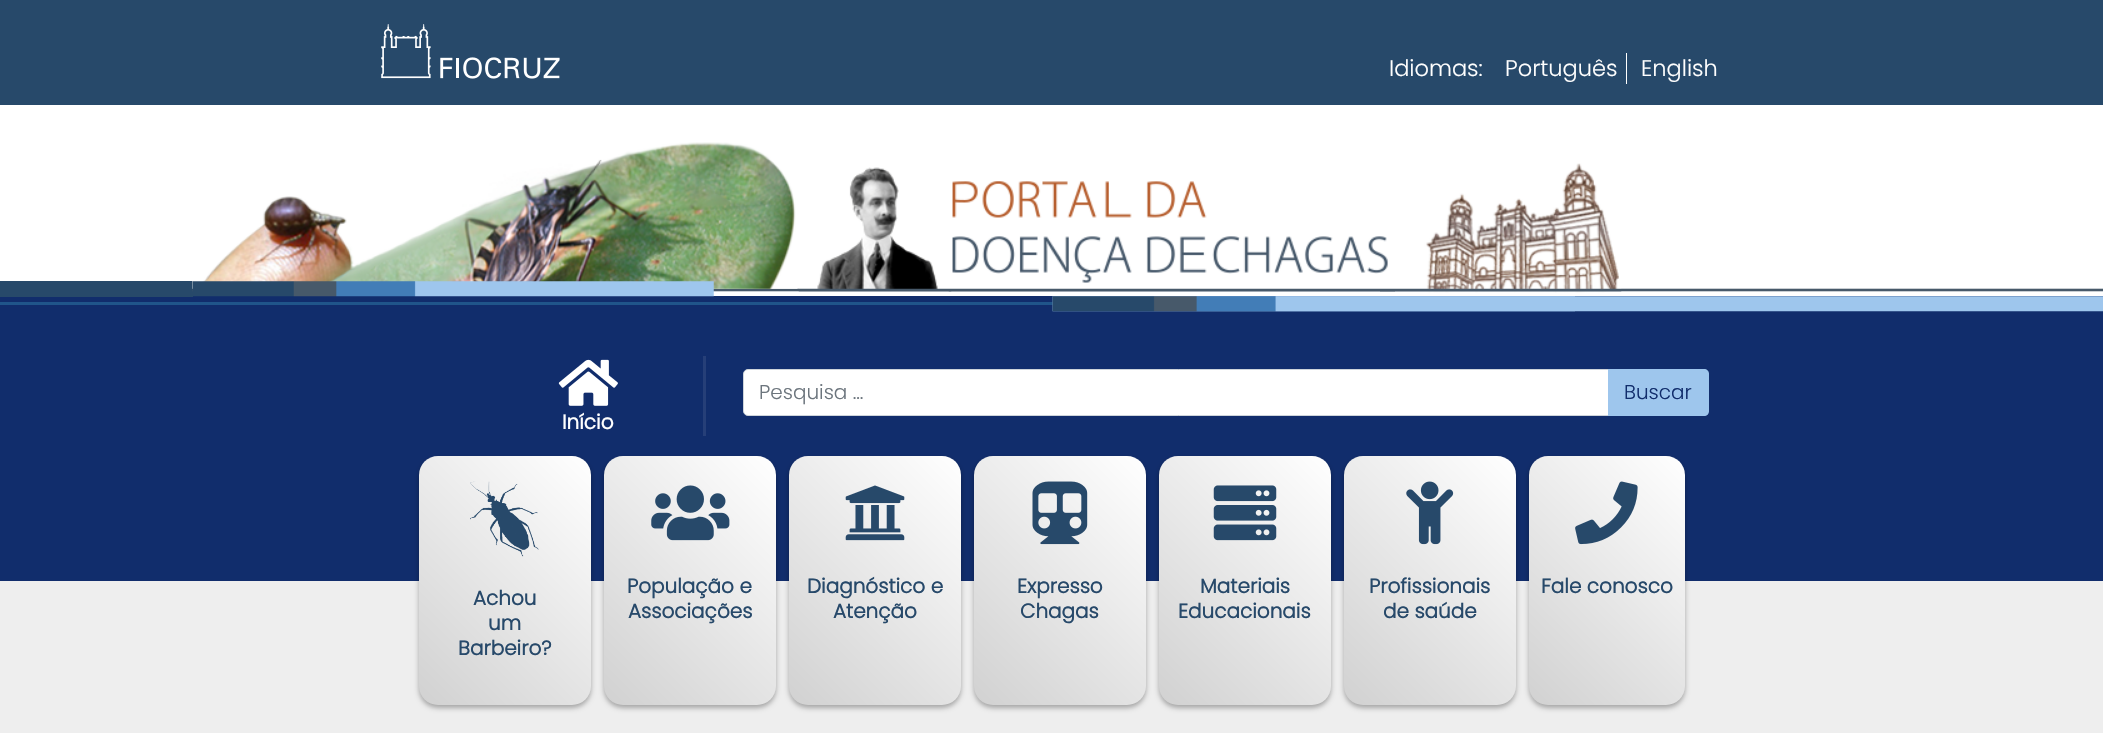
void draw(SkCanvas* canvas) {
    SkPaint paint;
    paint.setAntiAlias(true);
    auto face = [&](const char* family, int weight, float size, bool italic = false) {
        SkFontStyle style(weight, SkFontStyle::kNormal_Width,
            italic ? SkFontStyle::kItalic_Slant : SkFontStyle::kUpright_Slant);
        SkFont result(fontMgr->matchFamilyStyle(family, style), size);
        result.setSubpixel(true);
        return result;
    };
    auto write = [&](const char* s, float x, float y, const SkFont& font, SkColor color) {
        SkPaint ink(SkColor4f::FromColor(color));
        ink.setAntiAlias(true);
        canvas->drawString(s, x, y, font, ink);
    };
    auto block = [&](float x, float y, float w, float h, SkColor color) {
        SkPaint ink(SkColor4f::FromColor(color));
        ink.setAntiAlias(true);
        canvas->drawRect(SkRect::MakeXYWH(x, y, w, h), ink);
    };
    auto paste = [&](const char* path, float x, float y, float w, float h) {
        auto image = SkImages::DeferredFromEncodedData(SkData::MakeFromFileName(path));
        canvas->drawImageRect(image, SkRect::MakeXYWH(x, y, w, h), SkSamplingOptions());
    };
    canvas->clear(SK_ColorWHITE);
    block(0, 0, 2103, 105, SkColorSetRGB(39, 73, 106));
    paste("pic1.png", 381, 24, 179, 55);
    auto kFont1 = face("Poppins", 300, 22.5f);
    write("Idiomas:", 1389, 76, kFont1, SK_ColorWHITE);
    write("Português", 1505, 76, kFont1, SK_ColorWHITE);
    block(1626, 53, 1, 31, SK_ColorWHITE);
    write("English", 1641, 76, kFont1, SK_ColorWHITE);
    block(0, 296, 2103, 285, SkColorSetRGB(17, 45, 108));
    block(0, 281, 193, 16, SkColorSetRGB(39, 73, 106));
    paste("pic2.png", 192, 281, 1911, 11);
    block(0, 302, 1053, 3, SkColorSetRGB(32, 85, 138));
    paste("pic4.png", 1052, 296, 1051, 16);
    paste("pic3.png", 192, 142, 1430, 155);
    paint.setColor(SK_ColorWHITE);
    canvas->drawPath(SkPathBuilder().moveTo(748, 369.5f).lineTo(1608.5f, 369.5f).lineTo(1608.5f, 415.5f).lineTo(748, 415.5f).cubicTo(745.5f, 415.5f, 743.5f, 413.5f, 743.5f, 411).lineTo(743.5f, 374).cubicTo(743.5f, 371.5f, 745.5f, 369.5f, 748, 369.5f).close().detach(), paint);
    paint.setStyle(SkPaint::kStroke_Style);
    paint.setStrokeWidth(1);
    paint.setColor(SkColorSetRGB(206, 212, 218));
    canvas->drawPath(SkPathBuilder().moveTo(748, 369.5f).lineTo(1608.5f, 369.5f).lineTo(1608.5f, 415.5f).lineTo(748, 415.5f).cubicTo(745.5f, 415.5f, 743.5f, 413.5f, 743.5f, 411).lineTo(743.5f, 374).cubicTo(743.5f, 371.5f, 745.5f, 369.5f, 748, 369.5f).close().detach(), paint);
    auto kFont2 = face("Poppins", 300, 20);
    write("Pesquisa …", 759, 399, kFont2, SkColorSetRGB(108, 117, 125));
    paint.setStyle(SkPaint::kFill_Style);
    paint.setColor(SkColorSetRGB(158, 198, 237));
    canvas->drawPath(SkPathBuilder().moveTo(1608, 369).lineTo(1704, 369).cubicTo(1707, 369, 1709, 371, 1709, 374).lineTo(1709, 411).cubicTo(1709, 414, 1707, 416, 1704, 416).lineTo(1608, 416).close().detach(), paint);
    write("Buscar", 1624, 399, kFont2, SkColorSetRGB(17, 45, 108));
    block(703, 356, 3, 80, SkColorSetRGB(38, 63, 120));
    paste("pic5.png", 558, 359, 60, 47);
    auto kFont3 = face("Poppins", 700, 20);
    write("Início", 562, 429, kFont3, SK_ColorWHITE);
    block(0, 581, 2103, 152, SkColorSetRGB(238, 238, 238));
    paint.setColor(SkColorSetARGB(77, 0, 0, 0));
    paint.setMaskFilter(SkMaskFilter::MakeBlur(kNormal_SkBlurStyle, 2.5f));
    canvas->drawRoundRect(SkRect::MakeXYWH(419, 459, 172, 249), 19, 19, paint);
    paint.setMaskFilter(nullptr);
    {
        const SkColor colors[] = {SkColorSetRGB(209, 209, 209), SK_ColorWHITE};
        const float stops[] = {0, 1};
        const SkPoint ends[] = {{400, 686}, {610, 475}};
        paint.setShader(SkGradientShader::MakeLinear(ends, colors, stops, 2, SkTileMode::kClamp));
        paint.setAlpha(255);
    }
    canvas->drawRoundRect(SkRect::MakeXYWH(419, 456, 172, 249), 19, 19, paint);
    paste("pic6.png", 470, 481, 69, 76);
    write("Achou", 473, 605, kFont3, SkColorSetRGB(39, 73, 106));
    write("um", 488, 630, kFont3, SkColorSetRGB(39, 73, 106));
    write("Barbeiro?", 458, 655, kFont3, SkColorSetRGB(39, 73, 106));
    paint.setShader(nullptr);
    paint.setColor(SkColorSetARGB(77, 0, 0, 0));
    paint.setMaskFilter(SkMaskFilter::MakeBlur(kNormal_SkBlurStyle, 2.5f));
    canvas->drawRoundRect(SkRect::MakeXYWH(604, 459, 172, 249), 19, 19, paint);
    paint.setMaskFilter(nullptr);
    {
        const SkColor colors[] = {SkColorSetRGB(209, 209, 209), SK_ColorWHITE};
        const float stops[] = {0, 1};
        const SkPoint ends[] = {{585, 686}, {795, 475}};
        paint.setShader(SkGradientShader::MakeLinear(ends, colors, stops, 2, SkTileMode::kClamp));
        paint.setAlpha(255);
    }
    canvas->drawRoundRect(SkRect::MakeXYWH(604, 456, 172, 249), 19, 19, paint);
    paste("pic7.png", 651, 485, 79, 56);
    write("População e", 627, 593, kFont3, SkColorSetRGB(39, 73, 106));
    write("Associações", 628, 618, kFont3, SkColorSetRGB(39, 73, 106));
    paint.setShader(nullptr);
    paint.setColor(SkColorSetARGB(77, 0, 0, 0));
    paint.setMaskFilter(SkMaskFilter::MakeBlur(kNormal_SkBlurStyle, 2.5f));
    canvas->drawRoundRect(SkRect::MakeXYWH(789, 459, 172, 249), 19, 19, paint);
    paint.setMaskFilter(nullptr);
    {
        const SkColor colors[] = {SkColorSetRGB(209, 209, 209), SK_ColorWHITE};
        const float stops[] = {0, 1};
        const SkPoint ends[] = {{770, 686}, {980, 475}};
        paint.setShader(SkGradientShader::MakeLinear(ends, colors, stops, 2, SkTileMode::kClamp));
        paint.setAlpha(255);
    }
    canvas->drawRoundRect(SkRect::MakeXYWH(789, 456, 172, 249), 19, 19, paint);
    paste("pic8.png", 845, 485, 60, 56);
    write("Diagnóstico e", 807, 593, kFont3, SkColorSetRGB(39, 73, 106));
    write("Atenção", 833, 618, kFont3, SkColorSetRGB(39, 73, 106));
    paint.setShader(nullptr);
    paint.setColor(SkColorSetARGB(77, 0, 0, 0));
    paint.setMaskFilter(SkMaskFilter::MakeBlur(kNormal_SkBlurStyle, 2.5f));
    canvas->drawRoundRect(SkRect::MakeXYWH(974, 459, 172, 249), 19, 19, paint);
    paint.setMaskFilter(nullptr);
    {
        const SkColor colors[] = {SkColorSetRGB(209, 209, 209), SK_ColorWHITE};
        const float stops[] = {0, 1};
        const SkPoint ends[] = {{955, 686}, {1165, 475}};
        paint.setShader(SkGradientShader::MakeLinear(ends, colors, stops, 2, SkTileMode::kClamp));
        paint.setAlpha(255);
    }
    canvas->drawRoundRect(SkRect::MakeXYWH(974, 456, 172, 249), 19, 19, paint);
    paste("pic9.png", 1032, 481, 56, 64);
    write("Expresso", 1017, 593, kFont3, SkColorSetRGB(39, 73, 106));
    write("Chagas", 1020, 618, kFont3, SkColorSetRGB(39, 73, 106));
    paint.setShader(nullptr);
    paint.setColor(SkColorSetARGB(77, 0, 0, 0));
    paint.setMaskFilter(SkMaskFilter::MakeBlur(kNormal_SkBlurStyle, 2.5f));
    canvas->drawRoundRect(SkRect::MakeXYWH(1159, 459, 172, 249), 19, 19, paint);
    paint.setMaskFilter(nullptr);
    {
        const SkColor colors[] = {SkColorSetRGB(209, 209, 209), SK_ColorWHITE};
        const float stops[] = {0, 1};
        const SkPoint ends[] = {{1140, 686}, {1350, 475}};
        paint.setShader(SkGradientShader::MakeLinear(ends, colors, stops, 2, SkTileMode::kClamp));
        paint.setAlpha(255);
    }
    canvas->drawRoundRect(SkRect::MakeXYWH(1159, 456, 172, 249), 19, 19, paint);
    paste("pic10.png", 1213, 485, 64, 56);
    write("Materiais", 1200, 593, kFont3, SkColorSetRGB(39, 73, 106));
    write("Educacionais", 1178, 618, kFont3, SkColorSetRGB(39, 73, 106));
    paint.setShader(nullptr);
    paint.setColor(SkColorSetARGB(77, 0, 0, 0));
    paint.setMaskFilter(SkMaskFilter::MakeBlur(kNormal_SkBlurStyle, 2.5f));
    canvas->drawRoundRect(SkRect::MakeXYWH(1344, 459, 172, 249), 19, 19, paint);
    paint.setMaskFilter(nullptr);
    {
        const SkColor colors[] = {SkColorSetRGB(209, 209, 209), SK_ColorWHITE};
        const float stops[] = {0, 1};
        const SkPoint ends[] = {{1325, 686}, {1535, 475}};
        paint.setShader(SkGradientShader::MakeLinear(ends, colors, stops, 2, SkTileMode::kClamp));
        paint.setAlpha(255);
    }
    canvas->drawRoundRect(SkRect::MakeXYWH(1344, 456, 172, 249), 19, 19, paint);
    paste("pic11.png", 1406, 481, 48, 64);
    write("Profissionais", 1369, 593, kFont3, SkColorSetRGB(39, 73, 106));
    write("de saúde", 1383, 618, kFont3, SkColorSetRGB(39, 73, 106));
    paint.setShader(nullptr);
    paint.setColor(SkColorSetARGB(77, 0, 0, 0));
    paint.setMaskFilter(SkMaskFilter::MakeBlur(kNormal_SkBlurStyle, 2.5f));
    canvas->drawRoundRect(SkRect::MakeXYWH(1529, 459, 156, 249), 19, 19, paint);
    paint.setMaskFilter(nullptr);
    {
        const SkColor colors[] = {SkColorSetRGB(209, 209, 209), SK_ColorWHITE};
        const float stops[] = {0, 1};
        const SkPoint ends[] = {{1506, 682}, {1708, 479}};
        paint.setShader(SkGradientShader::MakeLinear(ends, colors, stops, 2, SkTileMode::kClamp));
        paint.setAlpha(255);
    }
    canvas->drawRoundRect(SkRect::MakeXYWH(1529, 456, 156, 249), 19, 19, paint);
    paste("pic12.png", 1575, 481, 63, 64);
    write("Fale conosco", 1541, 593, kFont3, SkColorSetRGB(39, 73, 106));
}
